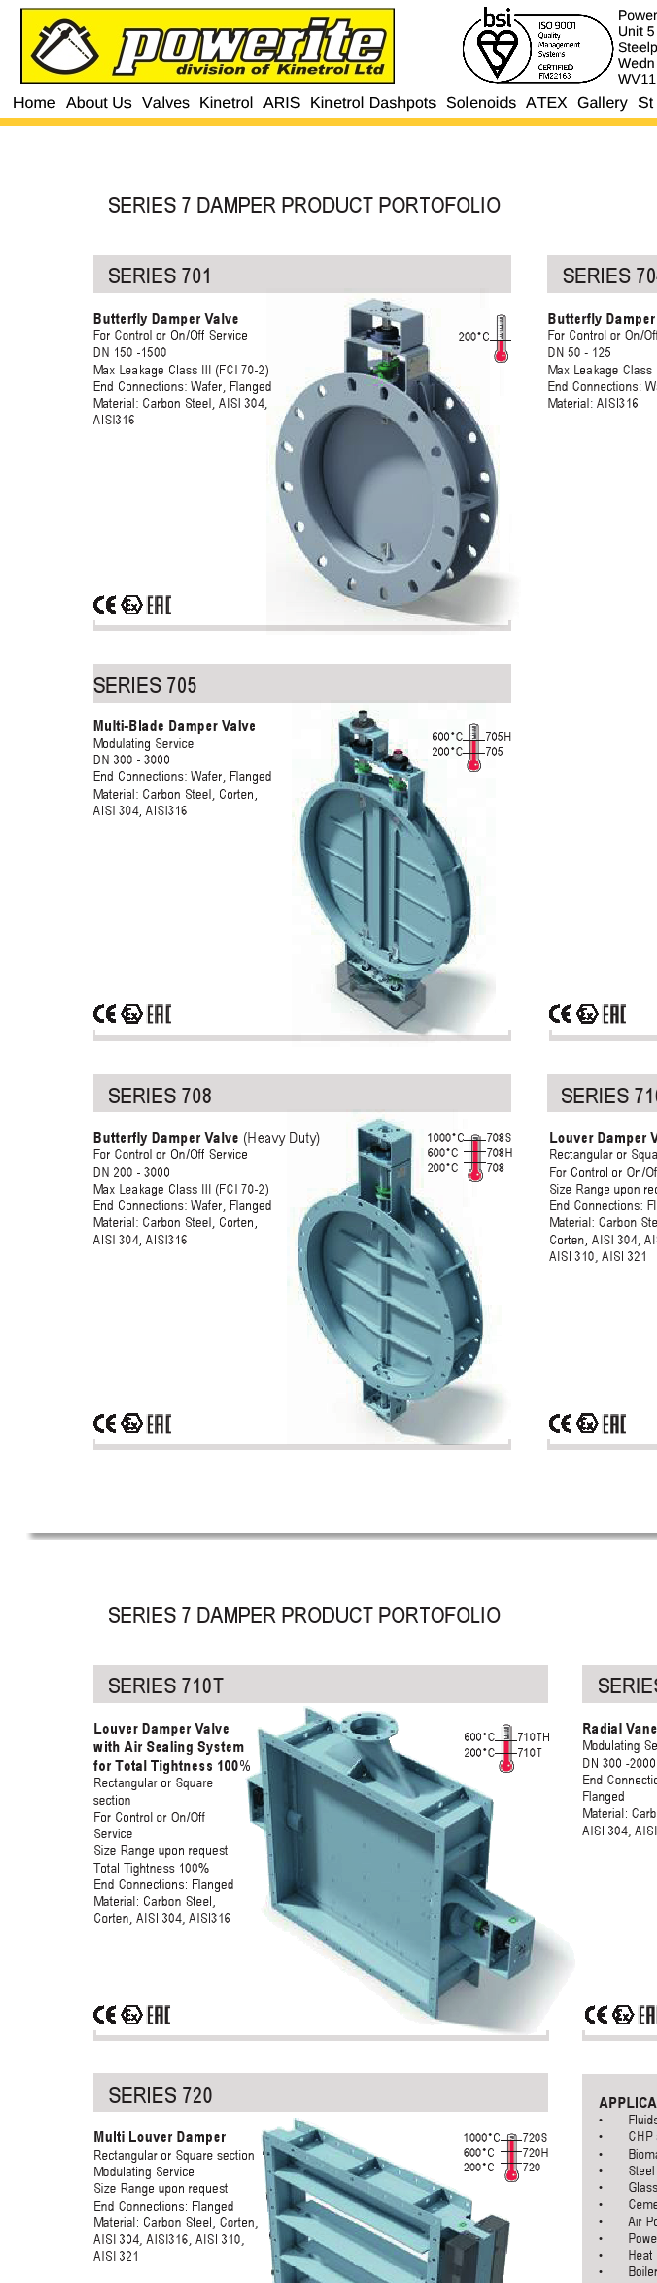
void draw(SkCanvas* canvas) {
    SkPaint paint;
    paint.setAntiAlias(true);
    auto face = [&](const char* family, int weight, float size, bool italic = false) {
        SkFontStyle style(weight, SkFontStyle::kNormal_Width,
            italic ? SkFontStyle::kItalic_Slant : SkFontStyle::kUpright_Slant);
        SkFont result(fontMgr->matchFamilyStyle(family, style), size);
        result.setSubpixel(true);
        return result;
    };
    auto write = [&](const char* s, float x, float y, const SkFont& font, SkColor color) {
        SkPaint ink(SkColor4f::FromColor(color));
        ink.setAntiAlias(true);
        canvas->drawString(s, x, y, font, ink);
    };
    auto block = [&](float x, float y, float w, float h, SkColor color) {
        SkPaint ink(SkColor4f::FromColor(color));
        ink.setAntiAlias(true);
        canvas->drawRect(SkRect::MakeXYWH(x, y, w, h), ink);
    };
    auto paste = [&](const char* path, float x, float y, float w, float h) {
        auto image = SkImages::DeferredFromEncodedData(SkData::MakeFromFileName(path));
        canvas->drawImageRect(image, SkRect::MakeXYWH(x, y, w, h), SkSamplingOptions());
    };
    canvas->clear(SK_ColorWHITE);
    paste("pic1.png", 20, 7, 375, 77);
    paste("pic2.png", 463, 7, 151, 77);
    auto kFont1 = face("Liberation Sans", 400, 14);
    write("Power", 618, 20, kFont1, SK_ColorBLACK);
    write("Unit 5", 618, 36, kFont1, SK_ColorBLACK);
    write("Steelp", 618, 52, kFont1, SK_ColorBLACK);
    write("Wedn", 618, 68, kFont1, SK_ColorBLACK);
    write("WV11", 618, 84, kFont1, SK_ColorBLACK);
    auto kFont2 = face("Liberation Sans", 400, 16);
    write("Home", 13, 108, kFont2, SK_ColorBLACK);
    write("About Us", 66, 108, kFont2, SK_ColorBLACK);
    write("Valves", 142, 108, kFont2, SK_ColorBLACK);
    write("Kinetrol", 199, 108, kFont2, SK_ColorBLACK);
    write("ARIS", 263, 108, kFont2, SK_ColorBLACK);
    write("Kinetrol Dashpots", 310, 108, kFont2, SK_ColorBLACK);
    write("Solenoids", 446, 108, kFont2, SK_ColorBLACK);
    write("ATEX", 526, 108, kFont2, SK_ColorBLACK);
    write("Gallery", 577, 108, kFont2, SK_ColorBLACK);
    write("St", 638, 108, kFont2, SK_ColorBLACK);
    block(0, 118, 657, 8, SkColorSetRGB(255, 204, 51));
    paste("pic3.png", 26, 197, 631, 2086);
}
